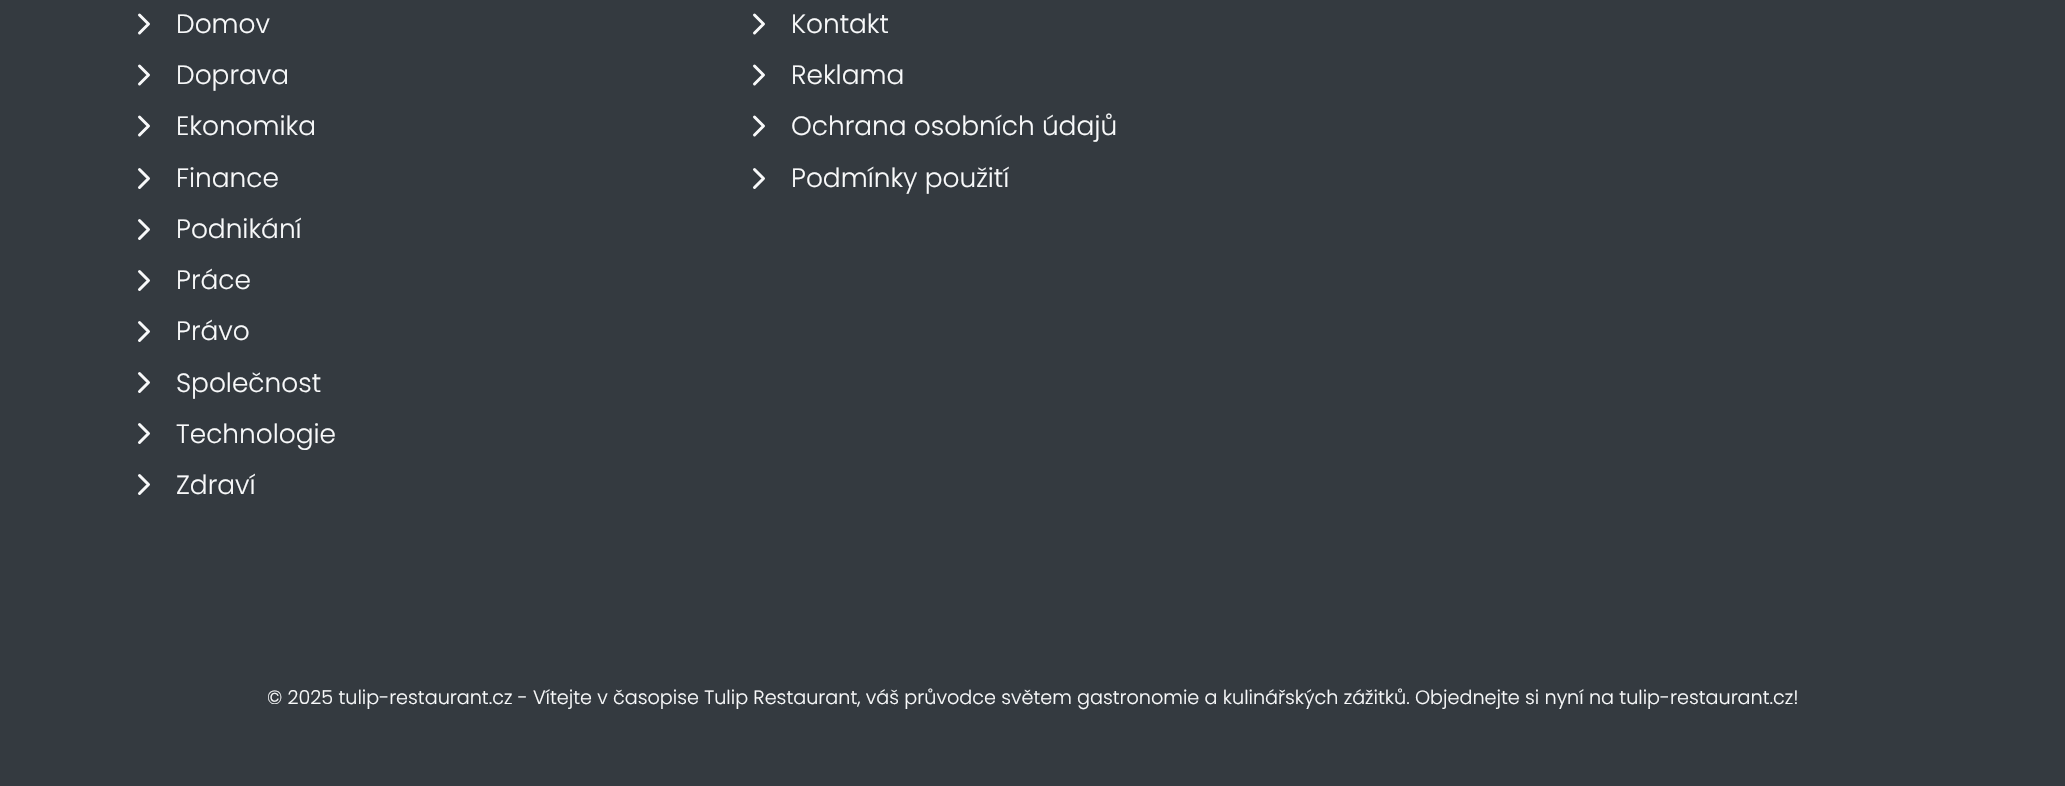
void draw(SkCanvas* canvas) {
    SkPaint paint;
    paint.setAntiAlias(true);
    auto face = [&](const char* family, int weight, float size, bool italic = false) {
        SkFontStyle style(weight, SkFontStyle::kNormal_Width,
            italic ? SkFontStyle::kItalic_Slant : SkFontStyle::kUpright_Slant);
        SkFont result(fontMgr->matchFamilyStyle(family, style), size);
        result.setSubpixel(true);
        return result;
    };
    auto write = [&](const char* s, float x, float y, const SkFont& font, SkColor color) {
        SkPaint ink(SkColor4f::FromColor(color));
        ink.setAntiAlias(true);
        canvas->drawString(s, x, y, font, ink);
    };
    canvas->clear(SkColorSetRGB(52, 58, 64));
    paint.setStyle(SkPaint::kStroke_Style);
    paint.setStrokeWidth(3);
    paint.setStrokeCap(SkPaint::kRound_Cap);
    paint.setStrokeJoin(SkPaint::kRound_Join);
    paint.setColor(SkColorSetRGB(248, 249, 250));
    canvas->drawPath(SkPathBuilder().moveTo(139.5f, 33).lineTo(148.5f, 24).lineTo(139.5f, 15).detach(), paint);
    auto kFont1 = face("Poppins", 300, 26.4f);
    write("Domov", 176, 33, kFont1, SkColorSetRGB(248, 249, 250));
    canvas->drawPath(SkPathBuilder().moveTo(139.5f, 84).lineTo(148.5f, 75).lineTo(139.5f, 66).detach(), paint);
    write("Doprava", 176, 84, kFont1, SkColorSetRGB(248, 249, 250));
    canvas->drawPath(SkPathBuilder().moveTo(139.5f, 135).lineTo(148.5f, 126).lineTo(139.5f, 117).detach(), paint);
    write("Ekonomika", 176, 135, kFont1, SkColorSetRGB(248, 249, 250));
    canvas->drawPath(SkPathBuilder().moveTo(139.5f, 187.5f).lineTo(148.5f, 178.5f).lineTo(139.5f, 169.5f).detach(), paint);
    write("Finance", 176, 187, kFont1, SkColorSetRGB(248, 249, 250));
    canvas->drawPath(SkPathBuilder().moveTo(139.5f, 238.5f).lineTo(148.5f, 229.5f).lineTo(139.5f, 220.5f).detach(), paint);
    write("Podnikání", 176, 238, kFont1, SkColorSetRGB(248, 249, 250));
    canvas->drawPath(SkPathBuilder().moveTo(139.5f, 289.5f).lineTo(148.5f, 280.5f).lineTo(139.5f, 271.5f).detach(), paint);
    write("Práce", 176, 289, kFont1, SkColorSetRGB(248, 249, 250));
    canvas->drawPath(SkPathBuilder().moveTo(139.5f, 340.5f).lineTo(148.5f, 331.5f).lineTo(139.5f, 322.5f).detach(), paint);
    write("Právo", 176, 340, kFont1, SkColorSetRGB(248, 249, 250));
    canvas->drawPath(SkPathBuilder().moveTo(139.5f, 391.5f).lineTo(148.5f, 382.5f).lineTo(139.5f, 373.5f).detach(), paint);
    write("Společnost", 176, 392, kFont1, SkColorSetRGB(248, 249, 250));
    canvas->drawPath(SkPathBuilder().moveTo(139.5f, 442.5f).lineTo(148.5f, 433.5f).lineTo(139.5f, 424.5f).detach(), paint);
    write("Technologie", 176, 443, kFont1, SkColorSetRGB(248, 249, 250));
    canvas->drawPath(SkPathBuilder().moveTo(139.5f, 493.5f).lineTo(148.5f, 484.5f).lineTo(139.5f, 475.5f).detach(), paint);
    write("Zdraví", 176, 494, kFont1, SkColorSetRGB(248, 249, 250));
    canvas->drawPath(SkPathBuilder().moveTo(754.5f, 33).lineTo(763.5f, 24).lineTo(754.5f, 15).detach(), paint);
    write("Kontakt", 791, 33, kFont1, SkColorSetRGB(248, 249, 250));
    canvas->drawPath(SkPathBuilder().moveTo(754.5f, 84).lineTo(763.5f, 75).lineTo(754.5f, 66).detach(), paint);
    write("Reklama", 791, 84, kFont1, SkColorSetRGB(248, 249, 250));
    canvas->drawPath(SkPathBuilder().moveTo(754.5f, 135).lineTo(763.5f, 126).lineTo(754.5f, 117).detach(), paint);
    write("Ochrana osobních údajů", 791, 135, kFont1, SkColorSetRGB(248, 249, 250));
    canvas->drawPath(SkPathBuilder().moveTo(754.5f, 187.5f).lineTo(763.5f, 178.5f).lineTo(754.5f, 169.5f).detach(), paint);
    write("Podmínky použití", 791, 187, kFont1, SkColorSetRGB(248, 249, 250));
    auto kFont2 = face("Poppins", 300, 19.2f);
    write("© 2025 tulip-restaurant.cz - Vítejte v časopise Tulip Restaurant, váš průvodce světem gastronomie a kulinářských zážitků. Objednejte si nyní na tulip-restaurant.cz!", 267, 704, kFont2, SkColorSetRGB(248, 249, 250));
}
